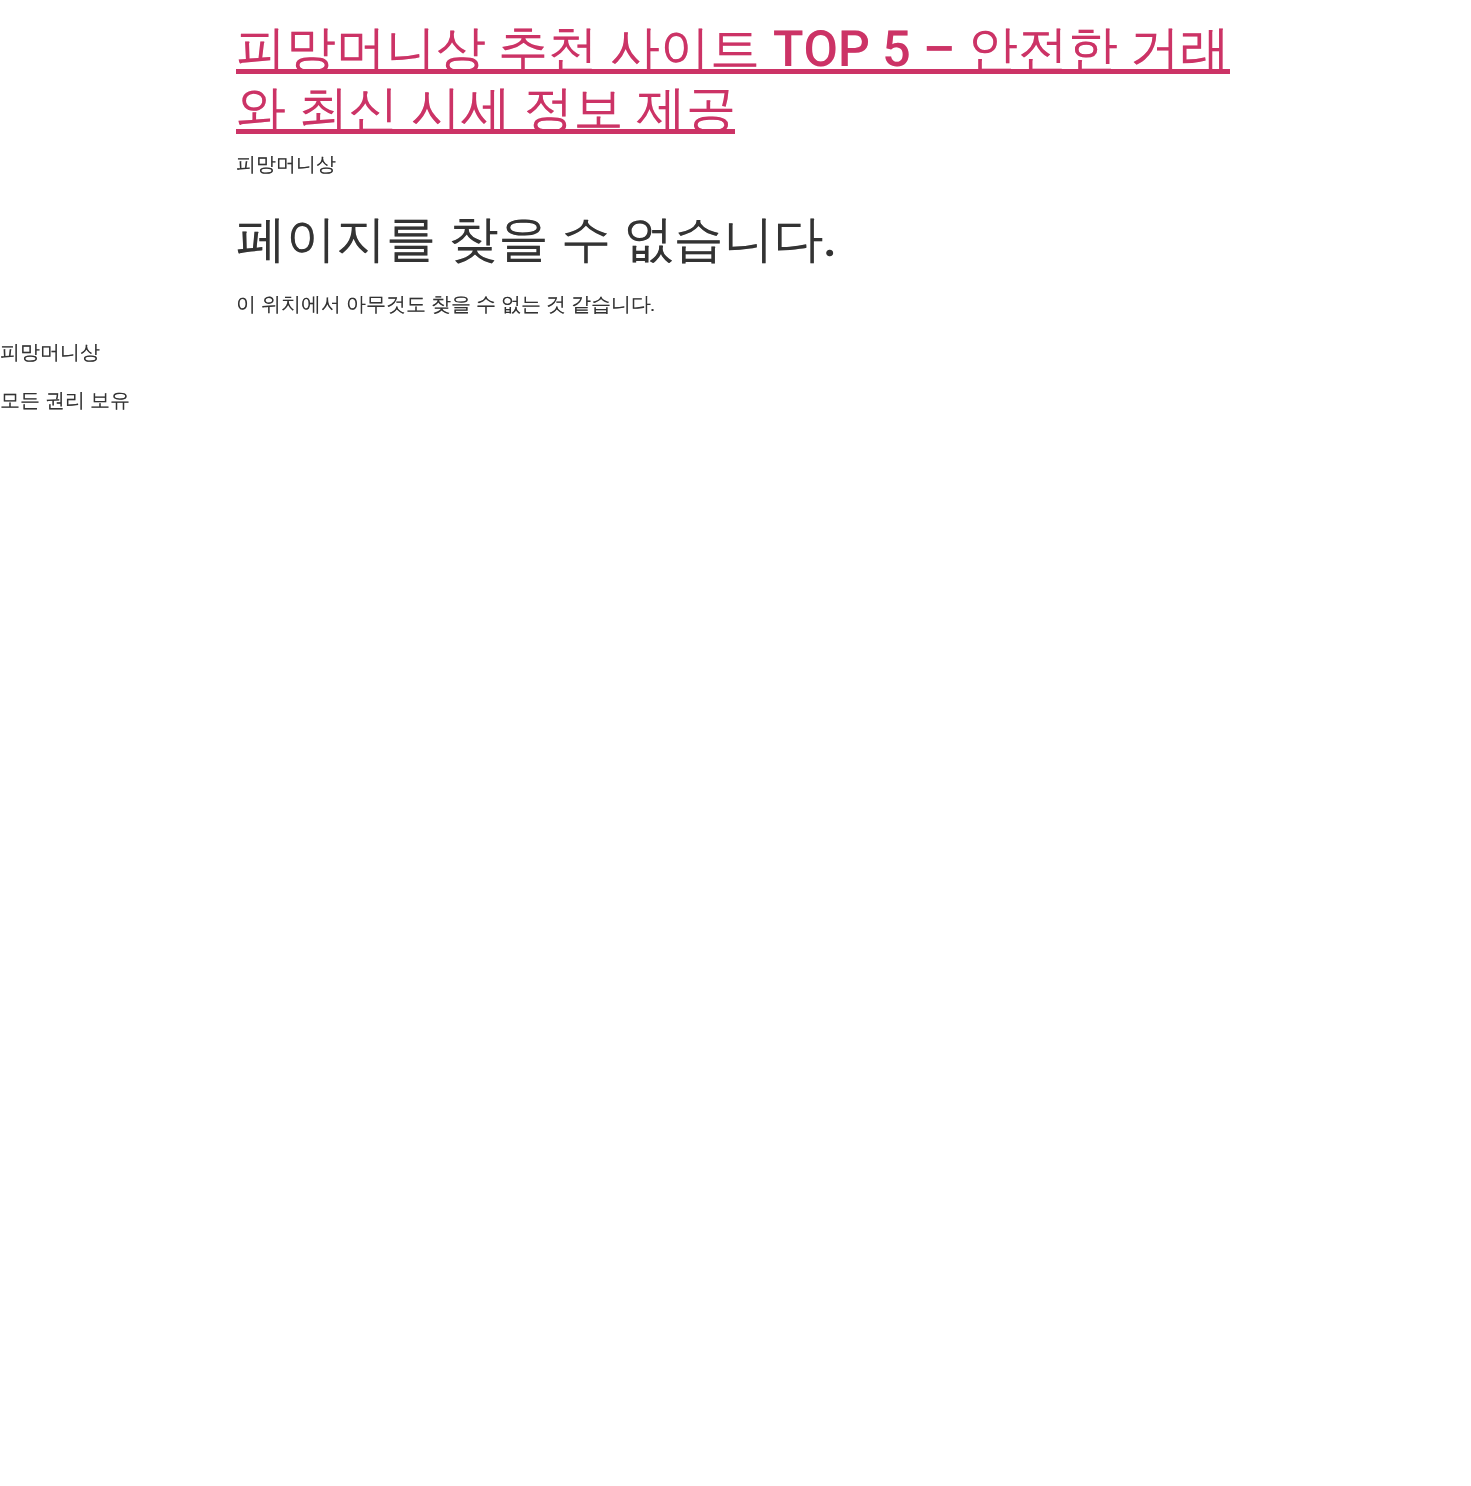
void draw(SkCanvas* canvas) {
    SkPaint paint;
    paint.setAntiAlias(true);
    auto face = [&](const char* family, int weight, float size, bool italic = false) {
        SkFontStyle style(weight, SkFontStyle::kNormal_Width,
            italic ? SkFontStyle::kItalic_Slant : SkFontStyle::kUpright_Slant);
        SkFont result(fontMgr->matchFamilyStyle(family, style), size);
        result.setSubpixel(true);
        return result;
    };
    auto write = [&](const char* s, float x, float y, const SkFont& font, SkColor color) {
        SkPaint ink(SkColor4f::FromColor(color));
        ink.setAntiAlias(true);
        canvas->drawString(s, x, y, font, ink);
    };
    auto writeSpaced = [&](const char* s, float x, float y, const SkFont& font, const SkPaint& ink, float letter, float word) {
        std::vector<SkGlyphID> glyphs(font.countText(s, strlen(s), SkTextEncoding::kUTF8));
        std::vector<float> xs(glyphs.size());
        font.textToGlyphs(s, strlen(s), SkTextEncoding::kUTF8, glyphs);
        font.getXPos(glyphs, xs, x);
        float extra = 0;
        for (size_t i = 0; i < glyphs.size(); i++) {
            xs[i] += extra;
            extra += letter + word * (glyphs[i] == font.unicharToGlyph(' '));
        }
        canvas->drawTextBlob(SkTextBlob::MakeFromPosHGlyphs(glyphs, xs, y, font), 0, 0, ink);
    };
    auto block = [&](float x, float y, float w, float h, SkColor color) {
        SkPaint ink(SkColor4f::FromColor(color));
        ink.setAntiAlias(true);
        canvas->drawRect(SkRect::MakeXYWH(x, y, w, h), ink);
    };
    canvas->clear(SK_ColorWHITE);
    block(236, 69, 994, 5, SkColorSetRGB(204, 51, 102));
    auto kFont1 = face("WenQuanYi Zen Hei", 500, 50);
    write("피망머니상", 236, 66, kFont1, SkColorSetRGB(204, 51, 102));
    write("추천", 498, 66, kFont1, SkColorSetRGB(204, 51, 102));
    write("사이트", 610, 66, kFont1, SkColorSetRGB(204, 51, 102));
    auto kFont2 = face("Roboto", 500, 50);
    write("TOP 5 –", 773, 66, kFont2, SkColorSetRGB(204, 51, 102));
    write("안전한", 968, 66, kFont1, SkColorSetRGB(204, 51, 102));
    write("거래", 1130, 66, kFont1, SkColorSetRGB(204, 51, 102));
    block(236, 129, 499, 5, SkColorSetRGB(204, 51, 102));
    paint.setColor(SkColorSetRGB(204, 51, 102));
    writeSpaced("와 최신 시세 정보 제공", 236, 126, kFont1, paint, 0, -2.5f);
    auto kFont3 = face("WenQuanYi Zen Hei", 500, 20);
    write("피망머니상", 236, 171, kFont3, SkColorSetRGB(51, 51, 51));
    paint.setColor(SkColorSetRGB(51, 51, 51));
    writeSpaced("페이지를 찾을 수 없습니다", 236, 256, kFont1, paint, 0, -2.5f);
    write(".", 823, 256, kFont2, SkColorSetRGB(51, 51, 51));
    writeSpaced("이 위치에서 아무것도 찾을 수 없는 것 같습니다", 236, 311, kFont3, paint, 0, -1);
    auto kFont4 = face("Roboto", 400, 20);
    write(".", 650, 311, kFont4, SkColorSetRGB(51, 51, 51));
    write("피망머니상", 0, 359, kFont3, SkColorSetRGB(51, 51, 51));
    writeSpaced("모든 권리 보유", 0, 407, kFont3, paint, 0, -1);
}
